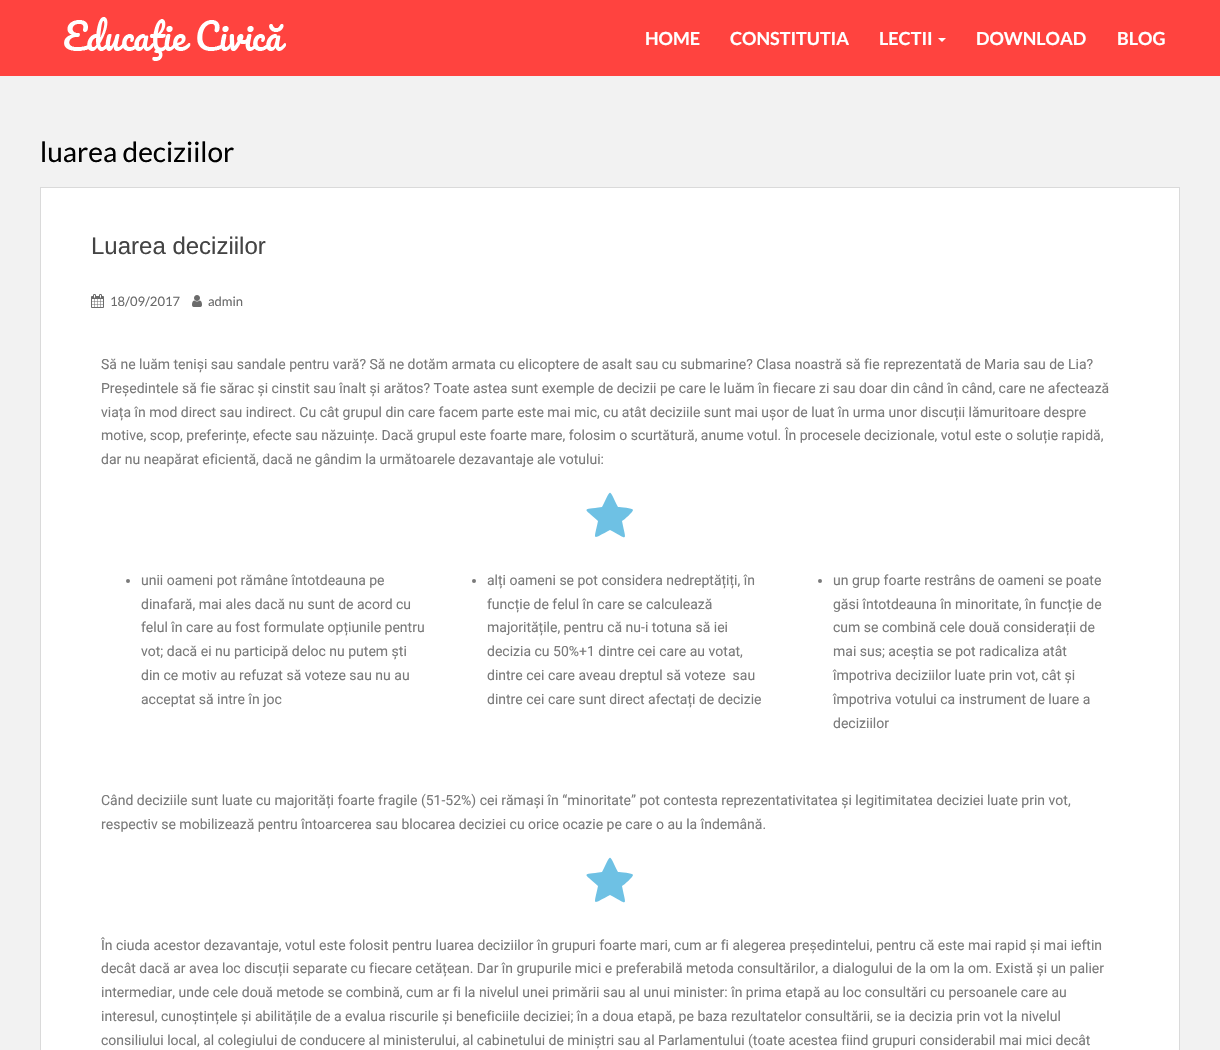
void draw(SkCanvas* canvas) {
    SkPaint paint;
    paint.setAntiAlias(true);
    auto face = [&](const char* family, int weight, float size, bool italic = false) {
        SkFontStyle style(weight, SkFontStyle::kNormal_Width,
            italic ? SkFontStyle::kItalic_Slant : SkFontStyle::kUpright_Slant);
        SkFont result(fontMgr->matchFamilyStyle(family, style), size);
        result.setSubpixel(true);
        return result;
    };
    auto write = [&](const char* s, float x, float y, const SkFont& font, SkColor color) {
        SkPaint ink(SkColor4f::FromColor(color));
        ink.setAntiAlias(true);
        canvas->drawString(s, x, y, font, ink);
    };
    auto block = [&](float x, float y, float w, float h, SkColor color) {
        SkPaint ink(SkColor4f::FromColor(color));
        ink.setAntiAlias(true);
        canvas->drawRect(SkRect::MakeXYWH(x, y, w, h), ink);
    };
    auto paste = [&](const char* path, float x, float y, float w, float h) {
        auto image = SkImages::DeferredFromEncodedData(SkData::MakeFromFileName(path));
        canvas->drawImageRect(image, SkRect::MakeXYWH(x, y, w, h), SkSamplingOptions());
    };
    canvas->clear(SkColorSetRGB(242, 242, 242));
    block(0, 0, 1220, 76, SkColorSetRGB(255, 67, 63));
    paste("pic1.png", 64, 17, 222, 44);
    auto kFont1 = face("Lato", 700, 18);
    write("HOME", 645, 45, kFont1, SK_ColorWHITE);
    write("CONSTITUTIA", 730, 45, kFont1, SK_ColorWHITE);
    write("LECTII", 879, 45, kFont1, SK_ColorWHITE);
    paint.setColor(SK_ColorWHITE);
    canvas->drawPath(SkPathBuilder().moveTo(938, 38).lineTo(946, 38).lineTo(942, 42).close().detach(), paint);
    write("DOWNLOAD", 976, 45, kFont1, SK_ColorWHITE);
    write("BLOG", 1117, 45, kFont1, SK_ColorWHITE);
    auto kFont2 = face("Lato", 400, 28);
    write("luarea deciziilor", 40, 162, kFont2, SK_ColorBLACK);
    canvas->drawRect(SkRect::MakeXYWH(40.5f, 187.5f, 1139, 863), paint);
    paint.setStyle(SkPaint::kStroke_Style);
    paint.setStrokeWidth(1);
    paint.setColor(SkColorSetRGB(218, 218, 218));
    canvas->drawRect(SkRect::MakeXYWH(40.5f, 187.5f, 1139, 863), paint);
    auto kFont3 = face("Liberation Sans", 400, 24);
    write("Luarea deciziilor", 91, 254, kFont3, SkColorSetRGB(68, 68, 68));
    paste("pic2.png", 91, 294, 13, 14);
    auto kFont4 = face("Lato", 400, 13);
    write("18/09/2017", 110, 306, kFont4, SkColorSetRGB(107, 107, 107));
    paste("pic3.png", 192, 295, 10, 12);
    write("admin", 208, 306, kFont4, SkColorSetRGB(107, 107, 107));
    auto kFont5 = face("Roboto", 400, 14);
    write("Să ne luăm teniși sau sandale pentru vară? Să ne dotăm armata cu elicoptere de asalt sau cu submarine? Clasa noastră să fie reprezentată de Maria sau de Lia?", 101, 369, kFont5, SkColorSetRGB(122, 122, 122));
    write("Președintele să fie sărac și cinstit sau înalt și arătos? Toate astea sunt exemple de decizii pe care le luăm în fiecare zi sau doar din când în când, care ne afectează", 101, 393, kFont5, SkColorSetRGB(122, 122, 122));
    write("viața în mod direct sau indirect. Cu cât grupul din care facem parte este mai mic, cu atât deciziile sunt mai ușor de luat în urma unor discuții lămuritoare despre", 101, 417, kFont5, SkColorSetRGB(122, 122, 122));
    write("motive, scop, preferințe, efecte sau năzuințe. Dacă grupul este foarte mare, folosim o scurtătură, anume votul. În procesele decizionale, votul este o soluție rapidă,", 101, 440, kFont5, SkColorSetRGB(122, 122, 122));
    write("dar nu neapărat eficientă, dacă ne gândim la următoarele dezavantaje ale votului:", 101, 464, kFont5, SkColorSetRGB(122, 122, 122));
    paint.setStyle(SkPaint::kFill_Style);
    paint.setColor(SkColorSetRGB(110, 193, 228));
    canvas->drawPath(SkPathBuilder().moveTo(633, 510).cubicTo(633, 512, 624, 520, 622, 521).cubicTo(626, 542, 629, 540, 610, 530).cubicTo(591, 540, 594, 541, 598, 521).cubicTo(583, 507, 581, 510, 602, 507).cubicTo(612, 488, 608, 488, 618, 507).cubicTo(620, 507, 633, 508, 633, 510).close().detach(), paint);
    paint.setColor(SkColorSetRGB(122, 122, 122));
    canvas->drawCircle(128, 581, 2, paint);
    write("unii oameni pot rămâne întotdeauna pe", 141, 585, kFont5, SkColorSetRGB(122, 122, 122));
    write("dinafară, mai ales dacă nu sunt de acord cu", 141, 609, kFont5, SkColorSetRGB(122, 122, 122));
    write("felul în care au fost formulate opțiunile pentru", 141, 632, kFont5, SkColorSetRGB(122, 122, 122));
    write("vot; dacă ei nu participă deloc nu putem ști", 141, 656, kFont5, SkColorSetRGB(122, 122, 122));
    write("din ce motiv au refuzat să voteze sau nu au", 141, 680, kFont5, SkColorSetRGB(122, 122, 122));
    write("acceptat să intre în joc", 141, 704, kFont5, SkColorSetRGB(122, 122, 122));
    canvas->drawCircle(474, 581, 2, paint);
    write("alți oameni se pot considera nedreptățiți, în", 487, 585, kFont5, SkColorSetRGB(122, 122, 122));
    write("funcție de felul în care se calculează", 487, 609, kFont5, SkColorSetRGB(122, 122, 122));
    write("majoritățile, pentru că nu-i totuna să iei", 487, 632, kFont5, SkColorSetRGB(122, 122, 122));
    write("decizia cu 50%+1 dintre cei care au votat,", 487, 656, kFont5, SkColorSetRGB(122, 122, 122));
    write("dintre cei care aveau dreptul să voteze  sau", 487, 680, kFont5, SkColorSetRGB(122, 122, 122));
    write("dintre cei care sunt direct afectați de decizie", 487, 704, kFont5, SkColorSetRGB(122, 122, 122));
    canvas->drawCircle(820, 581, 2, paint);
    write("un grup foarte restrâns de oameni se poate", 833, 585, kFont5, SkColorSetRGB(122, 122, 122));
    write("găsi întotdeauna în minoritate, în funcție de", 833, 609, kFont5, SkColorSetRGB(122, 122, 122));
    write("cum se combină cele două considerații de", 833, 632, kFont5, SkColorSetRGB(122, 122, 122));
    write("mai sus; aceștia se pot radicaliza atât", 833, 656, kFont5, SkColorSetRGB(122, 122, 122));
    write("împotriva deciziilor luate prin vot, cât și", 833, 680, kFont5, SkColorSetRGB(122, 122, 122));
    write("împotriva votului ca instrument de luare a", 833, 704, kFont5, SkColorSetRGB(122, 122, 122));
    write("deciziilor", 833, 728, kFont5, SkColorSetRGB(122, 122, 122));
    write("Când deciziile sunt luate cu majorități foarte fragile (51-52%) cei rămași în “minoritate” pot contesta reprezentativitatea și legitimitatea deciziei luate prin vot,", 101, 805, kFont5, SkColorSetRGB(122, 122, 122));
    write("respectiv se mobilizează pentru întoarcerea sau blocarea deciziei cu orice ocazie pe care o au la îndemână.", 101, 829, kFont5, SkColorSetRGB(122, 122, 122));
    paint.setColor(SkColorSetRGB(110, 193, 228));
    canvas->drawPath(SkPathBuilder().moveTo(633, 875).cubicTo(633, 877, 624, 885, 622, 886).cubicTo(626, 907, 629, 905, 610, 895).cubicTo(591, 905, 594, 906, 598, 886).cubicTo(583, 872, 581, 875, 602, 872).cubicTo(612, 853, 608, 853, 618, 872).cubicTo(620, 872, 633, 873, 633, 875).close().detach(), paint);
    write("În ciuda acestor dezavantaje, votul este folosit pentru luarea deciziilor în grupuri foarte mari, cum ar fi alegerea președintelui, pentru că este mai rapid și mai ieftin", 101, 950, kFont5, SkColorSetRGB(122, 122, 122));
    write("decât dacă ar avea loc discuții separate cu fiecare cetățean. Dar în grupurile mici e preferabilă metoda consultărilor, a dialogului de la om la om. Există și un palier", 101, 973, kFont5, SkColorSetRGB(122, 122, 122));
    write("intermediar, unde cele două metode se combină, cum ar fi la nivelul unei primării sau al unui minister: în prima etapă au loc consultări cu persoanele care au", 101, 997, kFont5, SkColorSetRGB(122, 122, 122));
    write("interesul, cunoștințele și abilitățile de a evalua riscurile și beneficiile deciziei; în a doua etapă, pe baza rezultatelor consultării, se ia decizia prin vot la nivelul", 101, 1021, kFont5, SkColorSetRGB(122, 122, 122));
    write("consiliului local, al colegiului de conducere al ministerului, al cabinetului de miniștri sau al Parlamentului (toate acestea fiind grupuri considerabil mai mici decât", 101, 1045, kFont5, SkColorSetRGB(122, 122, 122));
}
